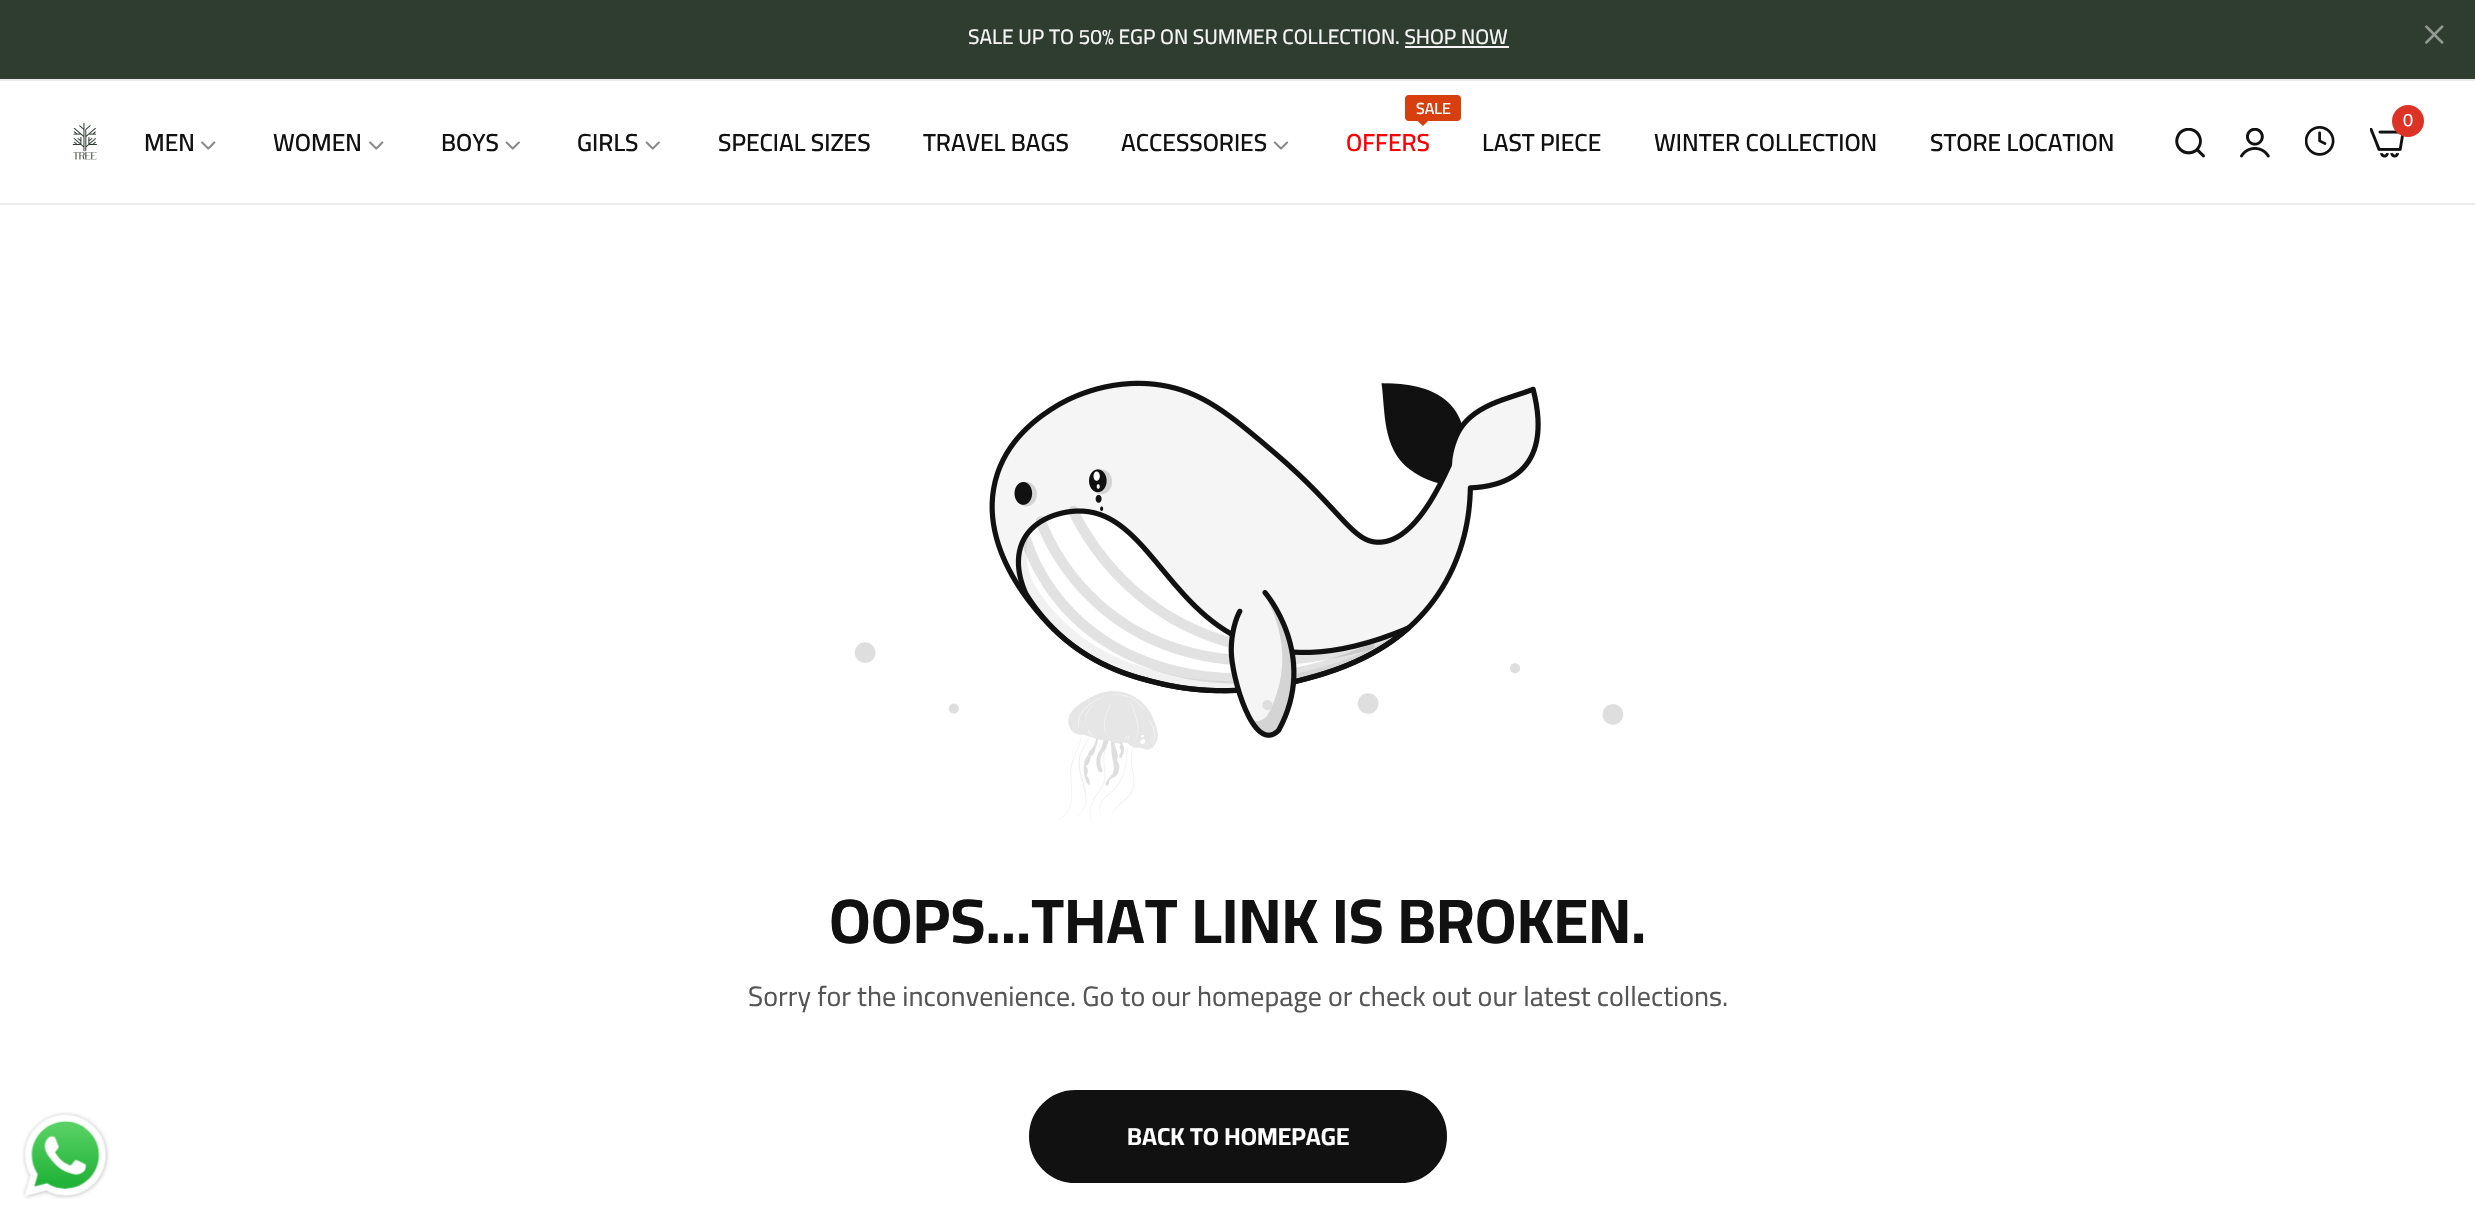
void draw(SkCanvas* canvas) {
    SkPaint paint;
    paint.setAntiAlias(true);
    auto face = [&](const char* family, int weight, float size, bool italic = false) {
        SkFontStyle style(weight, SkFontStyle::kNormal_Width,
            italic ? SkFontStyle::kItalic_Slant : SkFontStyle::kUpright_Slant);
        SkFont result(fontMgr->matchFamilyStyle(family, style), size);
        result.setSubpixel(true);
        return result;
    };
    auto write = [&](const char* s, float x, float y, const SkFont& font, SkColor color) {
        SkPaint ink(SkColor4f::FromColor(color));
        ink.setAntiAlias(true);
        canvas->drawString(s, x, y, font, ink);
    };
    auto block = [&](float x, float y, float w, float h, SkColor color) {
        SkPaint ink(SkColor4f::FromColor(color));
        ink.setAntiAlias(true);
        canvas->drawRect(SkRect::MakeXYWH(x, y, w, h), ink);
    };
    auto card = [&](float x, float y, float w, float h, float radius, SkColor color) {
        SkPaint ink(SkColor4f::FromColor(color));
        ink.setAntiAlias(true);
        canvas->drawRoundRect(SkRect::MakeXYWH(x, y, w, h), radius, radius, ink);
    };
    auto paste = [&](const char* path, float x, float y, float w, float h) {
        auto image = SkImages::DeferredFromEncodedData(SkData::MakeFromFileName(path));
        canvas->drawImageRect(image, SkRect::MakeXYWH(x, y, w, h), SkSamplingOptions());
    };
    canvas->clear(SK_ColorWHITE);
    block(0, 0, 2475, 79, SkColorSetRGB(47, 61, 48));
    auto kFont1 = face("Cairo", 500, 21);
    write("SALE UP TO 50% EGP ON SUMMER COLLECTION. SHOP NOW", 968, 44, kFont1, SkColorSetRGB(245, 245, 245));
    block(1405, 46, 104, 2, SkColorSetRGB(245, 245, 245));
    paste("pic1.png", 2425, 25, 19, 19);
    block(0, 203, 2475, 2, SkColorSetRGB(235, 235, 235));
    block(0, 79, 2475, 2, SkColorSetRGB(235, 235, 235));
    auto kFont2 = face("Cairo", 600, 24.5f);
    write("MEN", 144, 151, kFont2, SkColorSetRGB(17, 17, 17));
    paste("pic2.png", 201, 141, 15, 9);
    write("WOMEN", 273, 151, kFont2, SkColorSetRGB(17, 17, 17));
    paste("pic2.png", 369, 141, 15, 9);
    write("BOYS", 441, 151, kFont2, SkColorSetRGB(17, 17, 17));
    paste("pic3.png", 505, 141, 15, 9);
    write("GIRLS", 577, 151, kFont2, SkColorSetRGB(17, 17, 17));
    paste("pic3.png", 645, 141, 15, 9);
    write("SPECIAL SIZES", 718, 151, kFont2, SkColorSetRGB(17, 17, 17));
    write("TRAVEL BAGS", 923, 151, kFont2, SkColorSetRGB(17, 17, 17));
    write("ACCESSORIES", 1121, 151, kFont2, SkColorSetRGB(17, 17, 17));
    paste("pic4.png", 1273, 141, 16, 9);
    card(1405, 95, 56, 26, 4, SkColorSetRGB(215, 63, 15));
    auto kFont3 = face("Cairo", 600, 16);
    write("SALE", 1416, 114, kFont3, SK_ColorWHITE);
    paint.setColor(SkColorSetRGB(215, 63, 15));
    canvas->drawPath(SkPathBuilder().moveTo(1417.5f, 121).lineTo(1428, 121).lineTo(1423, 126).close().detach(), paint);
    write("OFFERS", 1346, 151, kFont2, SkColorSetRGB(255, 0, 0));
    write("LAST PIECE", 1482, 151, kFont2, SkColorSetRGB(17, 17, 17));
    write("WINTER COLLECTION", 1654, 151, kFont2, SkColorSetRGB(17, 17, 17));
    write("STORE LOCATION", 1930, 151, kFont2, SkColorSetRGB(17, 17, 17));
    paste("pic5.png", 2370, 128, 34, 30);
    paint.setColor(SkColorSetRGB(221, 51, 39));
    canvas->drawCircle(2408, 121, 16, paint);
    auto kFont4 = face("Cairo", 400, 18);
    write("0", 2403, 126, kFont4, SK_ColorWHITE);
    paste("pic6.png", 2175, 128, 30, 30);
    paste("pic7.png", 2240, 128, 30, 30);
    paste("pic8.png", 2305, 126, 30, 30);
    paste("pic9.png", 72, 123, 26, 37);
    paste("pic10.png", 854, 380, 770, 446);
    auto kFont5 = face("Cairo", 700, 63);
    write("OOPS...THAT LINK IS BROKEN.", 829, 943, kFont5, SkColorSetRGB(17, 17, 17));
    auto kFont6 = face("Cairo", 400, 28);
    write("Sorry for the inconvenience. Go to our homepage or check out our latest collections.", 748, 1006, kFont6, SkColorSetRGB(85, 85, 85));
    paint.setColor(SkColorSetRGB(17, 17, 17));
    canvas->drawRoundRect(SkRect::MakeXYWH(1030, 1091, 416, 91), 45.5f, 45.5f, paint);
    paint.setStyle(SkPaint::kStroke_Style);
    paint.setStrokeWidth(2);
    canvas->drawRoundRect(SkRect::MakeXYWH(1030, 1091, 416, 91), 45.5f, 45.5f, paint);
    auto kFont7 = face("Cairo", 700, 24.5f);
    write("BACK TO HOMEPAGE", 1127, 1145, kFont7, SK_ColorWHITE);
    paste("pic11.png", 22, 1112, 88, 87);
}
